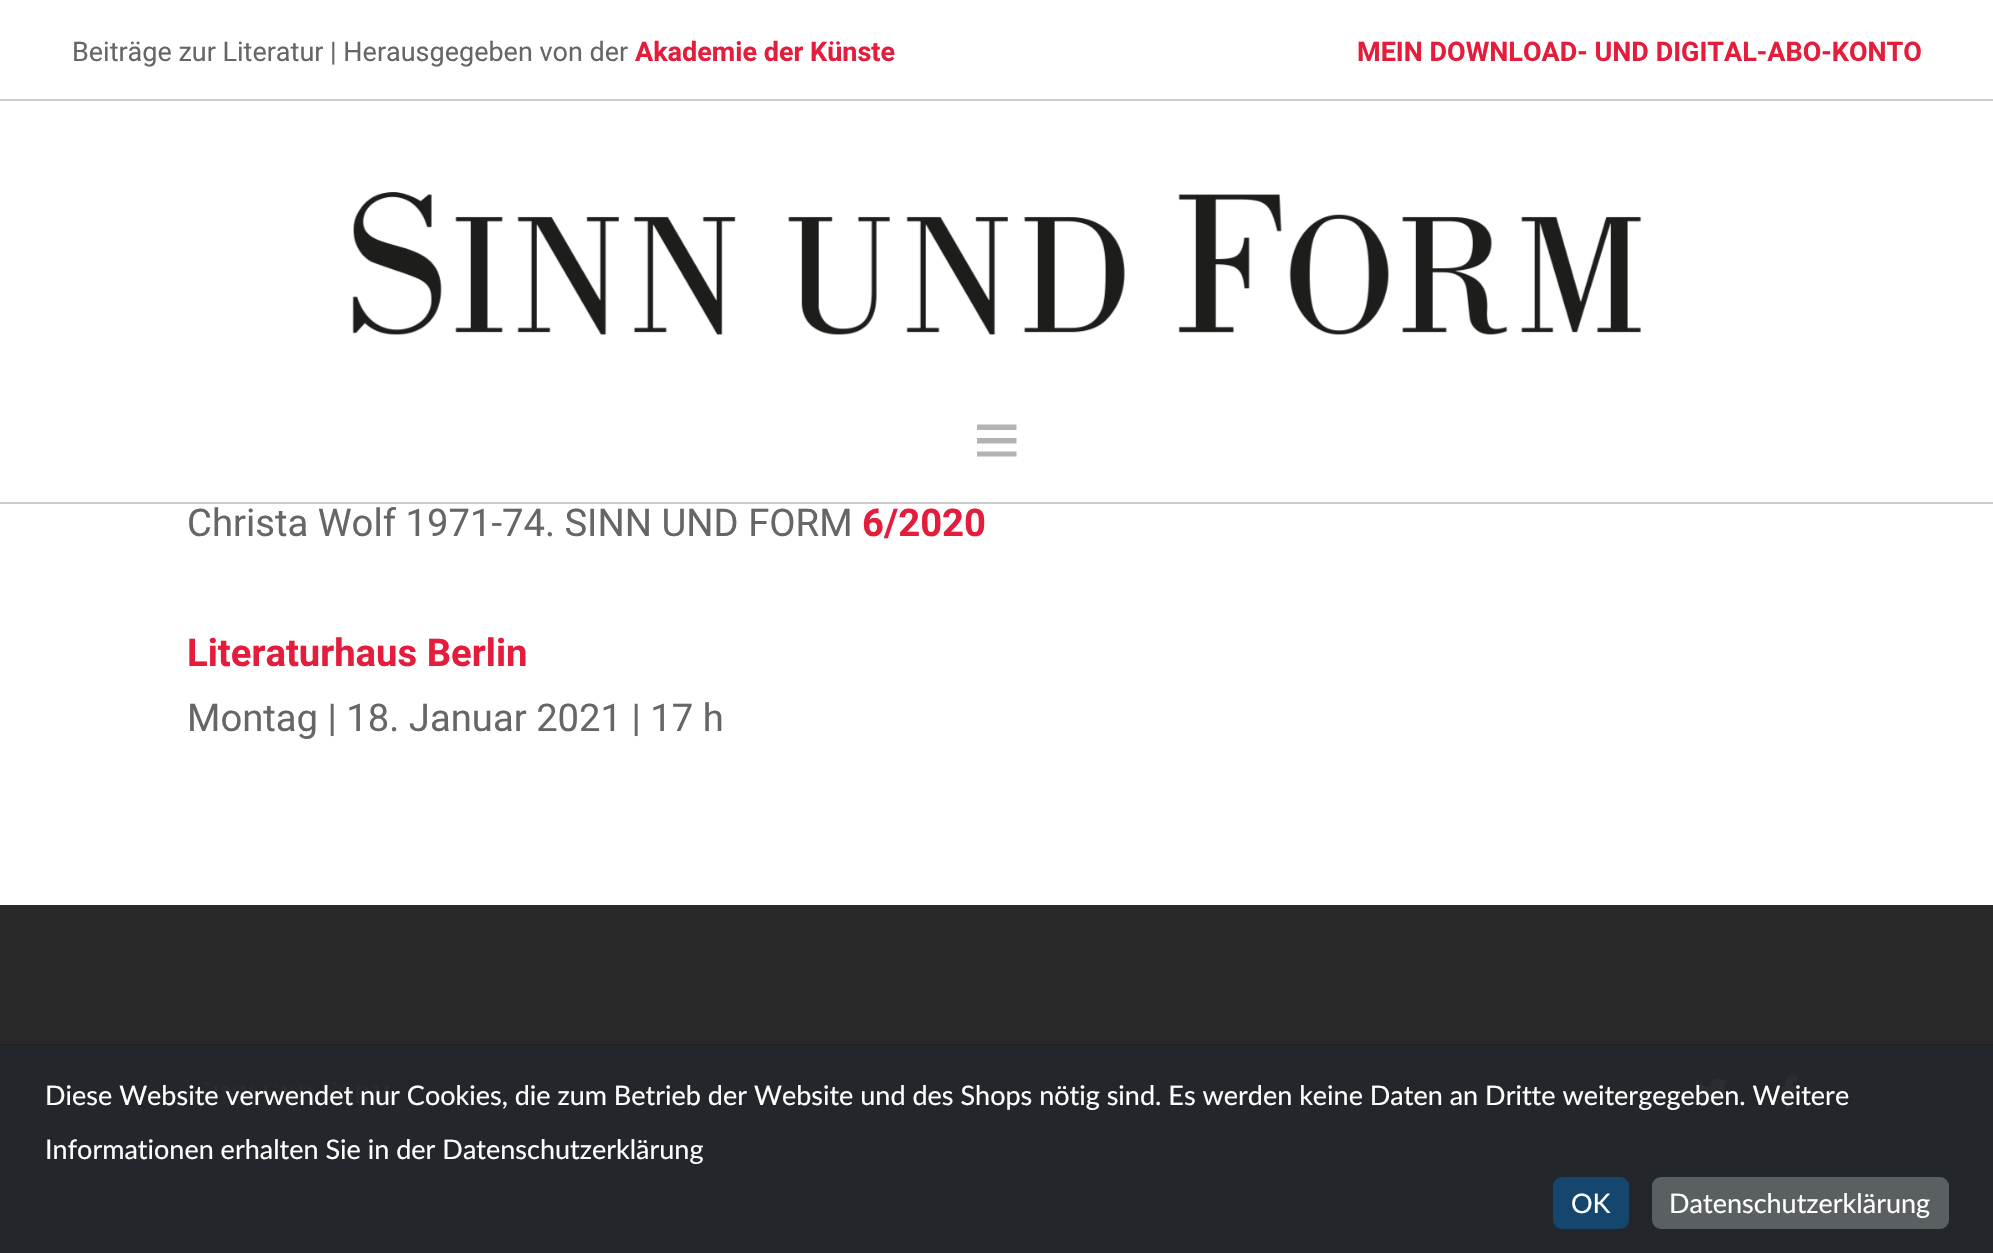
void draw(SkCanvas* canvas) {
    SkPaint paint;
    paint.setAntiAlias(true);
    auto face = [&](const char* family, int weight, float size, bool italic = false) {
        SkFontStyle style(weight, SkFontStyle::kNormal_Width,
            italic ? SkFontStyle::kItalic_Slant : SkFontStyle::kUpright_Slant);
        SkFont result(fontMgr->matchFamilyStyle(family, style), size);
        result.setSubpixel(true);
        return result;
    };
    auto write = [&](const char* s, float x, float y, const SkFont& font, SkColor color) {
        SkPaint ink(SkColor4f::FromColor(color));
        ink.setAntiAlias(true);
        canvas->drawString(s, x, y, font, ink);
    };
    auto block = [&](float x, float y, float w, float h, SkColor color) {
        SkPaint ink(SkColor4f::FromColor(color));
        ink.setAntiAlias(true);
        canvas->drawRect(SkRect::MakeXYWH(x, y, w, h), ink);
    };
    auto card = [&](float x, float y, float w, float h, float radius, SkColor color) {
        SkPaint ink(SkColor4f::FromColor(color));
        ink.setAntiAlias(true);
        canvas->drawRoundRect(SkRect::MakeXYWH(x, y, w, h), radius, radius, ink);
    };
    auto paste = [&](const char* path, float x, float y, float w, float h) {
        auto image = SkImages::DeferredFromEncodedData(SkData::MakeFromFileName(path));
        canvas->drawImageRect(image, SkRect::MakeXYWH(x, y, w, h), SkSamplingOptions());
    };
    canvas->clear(SK_ColorWHITE);
    block(0, 99, 1993, 2, SkColorSetRGB(204, 204, 204));
    auto kFont1 = face("Roboto", 400, 27);
    write("Beiträge zur Literatur | Herausgegeben von der", 72, 61, kFont1, SkColorSetRGB(102, 102, 102));
    auto kFont2 = face("Roboto", 700, 27);
    write("Akademie der Künste", 635, 61, kFont2, SkColorSetRGB(227, 29, 59));
    write("MEIN DOWNLOAD- UND DIGITAL-ABO-KONTO", 1357, 61, kFont2, SkColorSetRGB(227, 29, 59));
    paste("pic1.png", 352, 191, 1290, 145);
    block(0, 502, 1993, 2, SkColorSetRGB(204, 204, 204));
    paint.setColor(SkColorSetRGB(179, 179, 179));
    canvas->drawPath(SkPathBuilder().moveTo(1016.5f, 424.5f).lineTo(1016.5f, 430).lineTo(977, 430).lineTo(977, 424.5f).close().moveTo(977, 443.5f).lineTo(1016.5f, 443.5f).lineTo(1016.5f, 438).lineTo(977, 438).close().moveTo(977, 456.5f).lineTo(1016.5f, 456.5f).lineTo(1016.5f, 451.5f).lineTo(977, 451.5f).close().detach(), paint);
    auto kFont3 = face("Roboto", 400, 38.25f);
    write("Christa Wolf 1971-74. SINN UND FORM", 187, 536, kFont3, SkColorSetRGB(102, 102, 102));
    auto kFont4 = face("Roboto", 700, 38.25f);
    write("6/2020", 862, 536, kFont4, SkColorSetRGB(227, 29, 59));
    write("Literaturhaus Berlin", 187, 666, kFont4, SkColorSetRGB(227, 29, 59));
    write("Montag | 18. Januar 2021 | 17 h", 187, 731, kFont3, SkColorSetRGB(102, 102, 102));
    block(0, 905, 1993, 139, SkColorSetRGB(41, 41, 41));
    block(0, 1046, 1993, 207, SkColorSetRGB(35, 38, 43));
    paste("pic2.png", 197, 1082, 194, 22);
    paste("pic3.png", 1694, 1078, 34, 28);
    paste("pic4.png", 1782, 1075, 16, 35);
    block(0, 1044, 1993, 2, SkColorSetRGB(32, 34, 38));
    auto kFont5 = face("Lato", 400, 27);
    write("Diese Website verwendet nur Cookies, die zum Betrieb der Website und des Shops nötig sind. Es werden keine Daten an Dritte weitergegeben. Weitere", 45, 1105, kFont5, SK_ColorWHITE);
    write("Informationen erhalten Sie in der Datenschutzerklärung", 45, 1159, kFont5, SK_ColorWHITE);
    card(1553, 1177, 76, 52, 9, SkColorSetRGB(21, 70, 109));
    write("OK", 1571, 1213, kFont5, SK_ColorWHITE);
    card(1652, 1177, 297, 52, 9, SkColorSetRGB(90, 96, 97));
    write("Datenschutzerklärung", 1669, 1213, kFont5, SK_ColorWHITE);
}
